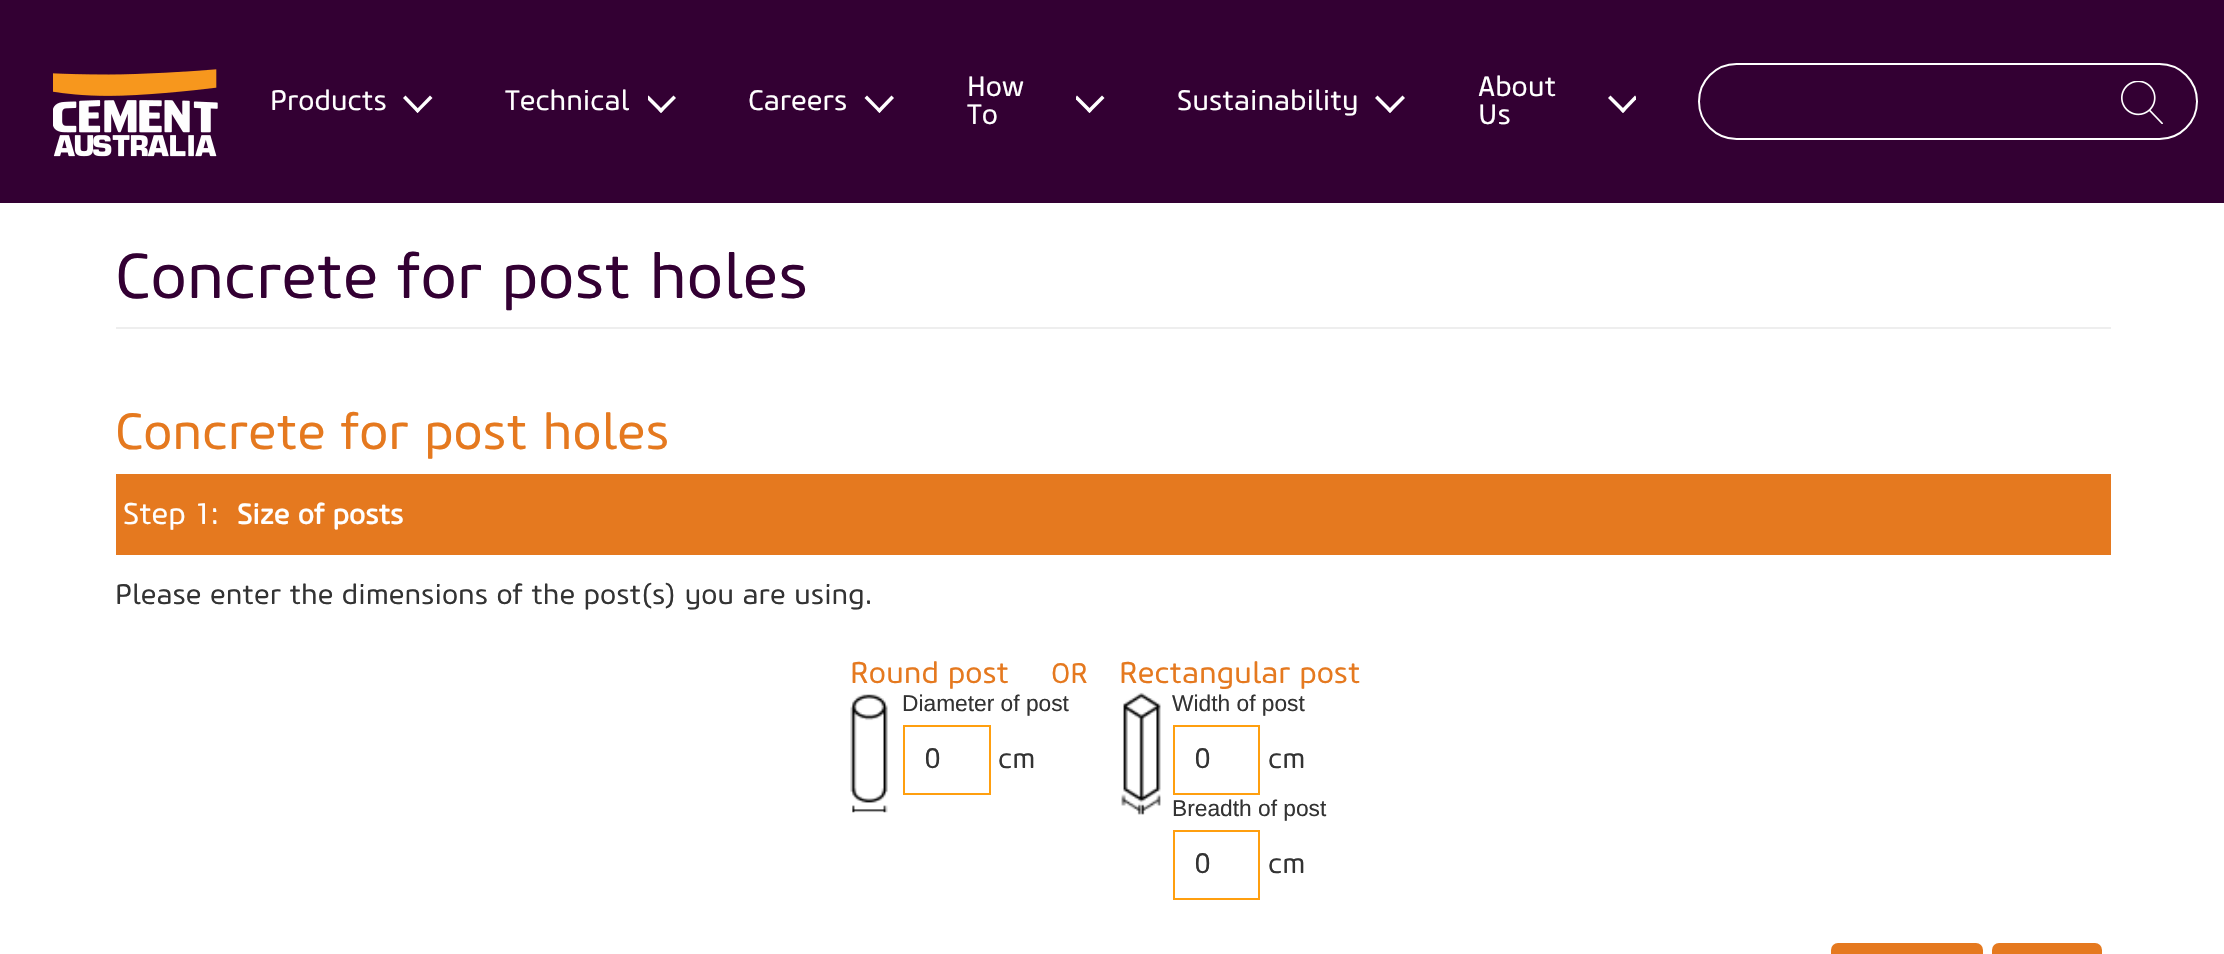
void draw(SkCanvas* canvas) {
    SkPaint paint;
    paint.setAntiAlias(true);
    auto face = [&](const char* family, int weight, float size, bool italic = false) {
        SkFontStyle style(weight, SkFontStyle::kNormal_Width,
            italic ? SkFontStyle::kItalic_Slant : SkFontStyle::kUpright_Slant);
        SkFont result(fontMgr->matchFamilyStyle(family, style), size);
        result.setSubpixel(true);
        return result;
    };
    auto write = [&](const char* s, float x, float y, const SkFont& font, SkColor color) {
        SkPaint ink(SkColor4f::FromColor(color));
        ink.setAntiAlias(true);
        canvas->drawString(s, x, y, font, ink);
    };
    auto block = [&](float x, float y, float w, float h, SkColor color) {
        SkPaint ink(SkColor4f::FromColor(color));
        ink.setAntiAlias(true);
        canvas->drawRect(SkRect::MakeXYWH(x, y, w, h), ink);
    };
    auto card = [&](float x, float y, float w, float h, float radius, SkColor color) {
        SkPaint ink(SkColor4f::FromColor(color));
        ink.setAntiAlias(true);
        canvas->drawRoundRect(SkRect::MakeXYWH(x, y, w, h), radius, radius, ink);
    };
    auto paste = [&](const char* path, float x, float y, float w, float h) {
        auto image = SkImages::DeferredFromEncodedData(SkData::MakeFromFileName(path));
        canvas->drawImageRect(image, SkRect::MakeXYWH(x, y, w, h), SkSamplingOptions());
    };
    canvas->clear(SK_ColorWHITE);
    block(0, 0, 2224, 203, SkColorSetRGB(51, 0, 51));
    paste("pic1.png", 53, 69, 165, 88);
    auto kFont1 = face("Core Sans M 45", 400, 28);
    write("Products", 270, 110, kFont1, SK_ColorWHITE);
    paint.setColor(SK_ColorWHITE);
    canvas->drawPath(SkPathBuilder().moveTo(432.5f, 98).lineTo(417.5f, 113).lineTo(415.5f, 110.5f).lineTo(430, 95.5f).close().detach(), paint);
    canvas->drawPath(SkPathBuilder().moveTo(420, 110.5f).lineTo(417.5f, 113).lineTo(403, 98).lineTo(405.5f, 95.5f).close().detach(), paint);
    write("Technical", 505, 110, kFont1, SK_ColorWHITE);
    canvas->drawPath(SkPathBuilder().moveTo(676, 98).lineTo(661, 113).lineTo(658.5f, 110.5f).lineTo(673.5f, 95.5f).close().detach(), paint);
    canvas->save();
    canvas->clipRect(SkRect::MakeXYWH(648, 88, 28, 28));
    canvas->drawPath(SkPathBuilder().moveTo(663.5f, 110.5f).lineTo(661, 113).lineTo(646, 98).lineTo(648.5f, 95.5f).close().detach(), paint);
    canvas->restore();
    write("Careers", 748, 110, kFont1, SK_ColorWHITE);
    canvas->drawPath(SkPathBuilder().moveTo(894, 98).lineTo(879.5f, 113).lineTo(877, 110.5f).lineTo(891.5f, 95.5f).close().detach(), paint);
    canvas->drawPath(SkPathBuilder().moveTo(881.5f, 110.5f).lineTo(879.5f, 113).lineTo(864.5f, 98).lineTo(867, 95.5f).close().detach(), paint);
    write("How", 967, 96, kFont1, SK_ColorWHITE);
    write("To", 967, 124, kFont1, SK_ColorWHITE);
    canvas->drawPath(SkPathBuilder().moveTo(1104.5f, 98).lineTo(1089.5f, 113).lineTo(1087, 110.5f).lineTo(1102, 95.5f).close().detach(), paint);
    canvas->save();
    canvas->clipRect(SkRect::MakeXYWH(1076, 88, 28, 28));
    canvas->drawPath(SkPathBuilder().moveTo(1092, 110.5f).lineTo(1089.5f, 113).lineTo(1074.5f, 98).lineTo(1077, 95.5f).close().detach(), paint);
    canvas->restore();
    write("Sustainability", 1177, 110, kFont1, SK_ColorWHITE);
    canvas->drawPath(SkPathBuilder().moveTo(1405, 98).lineTo(1390, 113).lineTo(1387.5f, 110.5f).lineTo(1402.5f, 95.5f).close().detach(), paint);
    canvas->drawPath(SkPathBuilder().moveTo(1392.5f, 110.5f).lineTo(1390, 113).lineTo(1375, 98).lineTo(1377.5f, 95.5f).close().detach(), paint);
    write("About", 1478, 96, kFont1, SK_ColorWHITE);
    write("Us", 1478, 124, kFont1, SK_ColorWHITE);
    canvas->save();
    canvas->clipRect(SkRect::MakeXYWH(1608, 88, 28, 28));
    canvas->drawPath(SkPathBuilder().moveTo(1637.5f, 98).lineTo(1623, 113).lineTo(1620.5f, 110.5f).lineTo(1635, 95.5f).close().detach(), paint);
    canvas->restore();
    canvas->drawPath(SkPathBuilder().moveTo(1625.5f, 110.5f).lineTo(1623, 113).lineTo(1608, 98).lineTo(1610.5f, 95.5f).close().detach(), paint);
    paint.setStyle(SkPaint::kStroke_Style);
    paint.setStrokeWidth(2);
    canvas->drawRoundRect(SkRect::MakeXYWH(1699, 64, 498, 75), 37.5f, 37.5f, paint);
    paste("pic2.png", 2121, 81, 42, 43);
    block(116, 327, 1995, 2, SkColorSetRGB(238, 238, 238));
    auto kFont2 = face("Core Sans M 45", 400, 63);
    write("Concrete for post holes", 115, 298, kFont2, SkColorSetRGB(51, 0, 51));
    auto kFont3 = face("Core Sans M 45", 400, 50.4f);
    write("Concrete for post holes", 115, 449, kFont3, SkColorSetRGB(229, 121, 31));
    block(116, 474, 1995, 81, SkColorSetRGB(229, 121, 31));
    auto kFont4 = face("Core Sans M 45", 400, 29.75f);
    write("Step 1:", 123, 524, kFont4, SK_ColorWHITE);
    auto kFont5 = face("Core Sans M 45", 700, 28);
    write("Size of posts", 237, 524, kFont5, SK_ColorWHITE);
    write("Please enter the dimensions of the post(s) you are using.", 115, 604, kFont1, SkColorSetRGB(51, 51, 51));
    paste("pic3.png", 850, 694, 38, 119);
    write("Round post", 850, 683, kFont4, SkColorSetRGB(229, 121, 31));
    auto kFont6 = face("Liberation Sans", 400, 22.75f);
    write("Diameter of post", 902, 711, kFont6, SkColorSetRGB(51, 51, 51));
    paint.setColor(SkColorSetRGB(255, 159, 15));
    canvas->drawRect(SkRect::MakeXYWH(904, 726, 86, 68), paint);
    write("0", 925, 768, kFont1, SkColorSetRGB(51, 51, 51));
    write("cm", 998, 768, kFont1, SkColorSetRGB(51, 51, 51));
    write("OR", 1051, 683, kFont1, SkColorSetRGB(229, 121, 31));
    paste("pic4.png", 1121, 692, 40, 123);
    write("Rectangular post", 1119, 683, kFont4, SkColorSetRGB(229, 121, 31));
    write("Width of post", 1172, 711, kFont6, SkColorSetRGB(51, 51, 51));
    canvas->drawRect(SkRect::MakeXYWH(1174, 726, 85, 68), paint);
    write("0", 1195, 768, kFont1, SkColorSetRGB(51, 51, 51));
    write("cm", 1268, 768, kFont1, SkColorSetRGB(51, 51, 51));
    write("Breadth of post", 1172, 816, kFont6, SkColorSetRGB(51, 51, 51));
    canvas->drawRect(SkRect::MakeXYWH(1174, 831, 85, 68), paint);
    write("0", 1195, 873, kFont1, SkColorSetRGB(51, 51, 51));
    write("cm", 1268, 873, kFont1, SkColorSetRGB(51, 51, 51));
    card(1831, 943, 152, 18, 7, SkColorSetRGB(229, 121, 31));
    card(1992, 943, 110, 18, 7, SkColorSetRGB(229, 121, 31));
}
